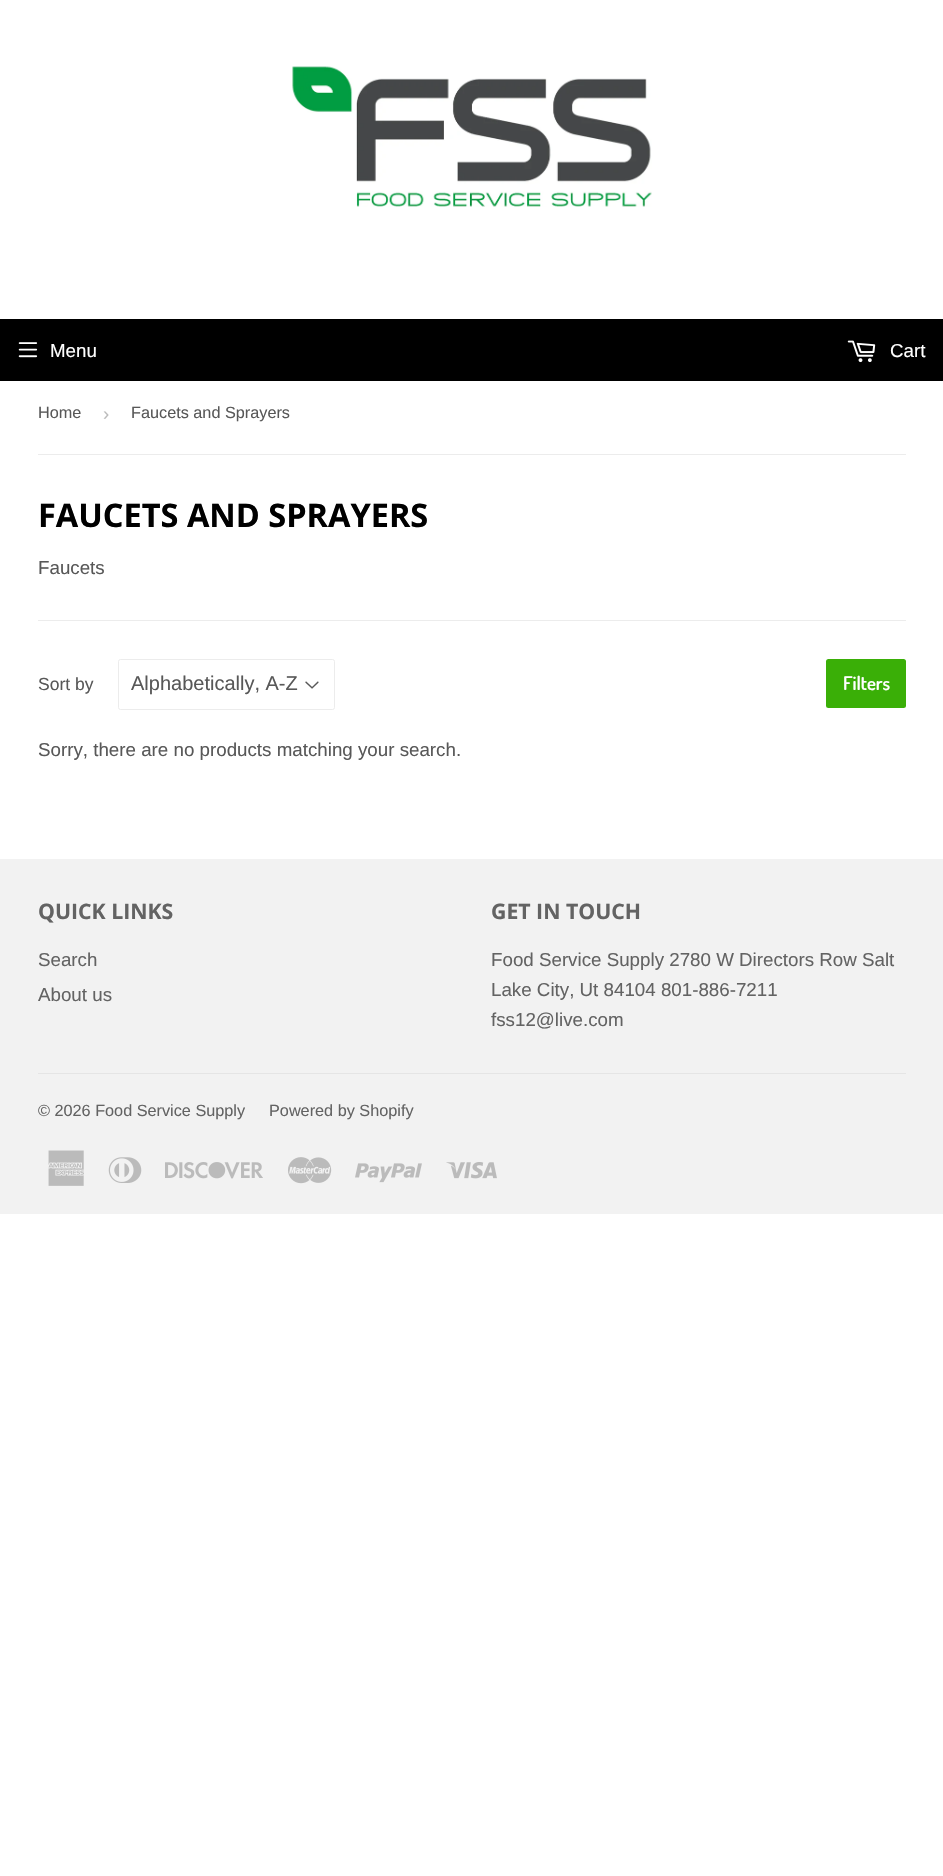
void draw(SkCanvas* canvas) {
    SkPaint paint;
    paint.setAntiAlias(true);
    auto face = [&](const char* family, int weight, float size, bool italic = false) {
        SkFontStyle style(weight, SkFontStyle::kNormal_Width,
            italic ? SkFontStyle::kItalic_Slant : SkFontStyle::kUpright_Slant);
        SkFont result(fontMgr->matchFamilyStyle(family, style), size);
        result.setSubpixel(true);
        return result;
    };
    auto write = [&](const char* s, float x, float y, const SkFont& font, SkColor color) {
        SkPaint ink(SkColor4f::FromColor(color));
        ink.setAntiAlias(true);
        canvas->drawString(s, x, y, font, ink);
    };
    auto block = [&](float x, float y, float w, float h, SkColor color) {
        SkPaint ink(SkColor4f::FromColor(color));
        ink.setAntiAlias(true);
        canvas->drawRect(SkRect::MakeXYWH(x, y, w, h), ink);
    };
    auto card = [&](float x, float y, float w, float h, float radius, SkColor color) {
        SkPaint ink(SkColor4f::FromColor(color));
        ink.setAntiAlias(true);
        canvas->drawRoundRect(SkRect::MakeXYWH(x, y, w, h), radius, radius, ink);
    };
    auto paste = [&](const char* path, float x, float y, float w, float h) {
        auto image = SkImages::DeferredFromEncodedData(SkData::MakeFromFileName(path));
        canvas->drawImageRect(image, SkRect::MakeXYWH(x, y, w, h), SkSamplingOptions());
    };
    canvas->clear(SK_ColorWHITE);
    paste("pic1.png", 292, 66, 360, 141);
    block(0, 319, 943, 62, SK_ColorBLACK);
    paste("pic2.png", 18, 342, 20, 16);
    auto kFont1 = face("Liberation Sans", 400, 18.75f);
    write("Menu", 50, 357, kFont1, SK_ColorWHITE);
    paste("pic3.png", 847, 340, 29, 23);
    write("Cart", 890, 357, kFont1, SK_ColorWHITE);
    block(38, 454, 868, 1, SkColorSetRGB(236, 236, 236));
    auto kFont2 = face("Liberation Sans", 400, 16.25f);
    write("Home", 38, 418, kFont2, SkColorSetRGB(88, 88, 88));
    write("›", 103, 420, kFont1, SkColorSetRGB(187, 187, 187));
    write("Faucets and Sprayers", 131, 418, kFont2, SkColorSetRGB(88, 88, 88));
    auto kFont3 = face("Open Sans", 700, 32.5f);
    write("FAUCETS AND SPRAYERS", 38, 527, kFont3, SK_ColorBLACK);
    write("Faucets", 38, 574, kFont1, SkColorSetRGB(88, 88, 88));
    block(38, 620, 868, 1, SkColorSetRGB(236, 236, 236));
    auto kFont4 = face("Liberation Sans", 400, 17.5f);
    write("Sort by", 38, 690, kFont4, SkColorSetRGB(88, 88, 88));
    paste("pic4.png", 305, 681, 14, 8);
    paint.setStyle(SkPaint::kStroke_Style);
    paint.setStrokeWidth(1);
    paint.setColor(SkColorSetRGB(236, 236, 236));
    canvas->drawRoundRect(SkRect::MakeXYWH(118.5f, 659.5f, 216, 50), 2, 2, paint);
    auto kFont5 = face("Liberation Sans", 400, 20);
    write("Alphabetically, A-Z", 131, 690, kFont5, SkColorSetRGB(88, 88, 88));
    card(826, 659, 80, 49, 2.5f, SkColorSetRGB(58, 175, 7));
    auto kFont6 = face("Dosis", 600, 18.75f);
    write("Filters", 843, 690, kFont6, SK_ColorWHITE);
    write("Sorry, there are no products matching your search.", 38, 756, kFont1, SkColorSetRGB(88, 88, 88));
    block(0, 859, 943, 355, SkColorSetRGB(242, 242, 242));
    auto kFont7 = face("Open Sans", 700, 21.25f);
    write("QUICK LINKS", 38, 919, kFont7, SkColorSetRGB(99, 99, 99));
    write("Search", 38, 966, kFont1, SkColorSetRGB(99, 99, 99));
    write("About us", 38, 1001, kFont1, SkColorSetRGB(99, 99, 99));
    write("GET IN TOUCH", 491, 919, kFont7, SkColorSetRGB(99, 99, 99));
    write("Food Service Supply 2780 W Directors Row Salt", 491, 966, kFont1, SkColorSetRGB(99, 99, 99));
    write("Lake City, Ut 84104 801-886-7211", 491, 996, kFont1, SkColorSetRGB(99, 99, 99));
    write("fss12@live.com", 491, 1026, kFont1, SkColorSetRGB(99, 99, 99));
    block(38, 1073, 868, 1, SkColorSetRGB(229, 229, 229));
    write("© 2026 Food Service Supply", 38, 1116, kFont2, SkColorSetRGB(99, 99, 99));
    write("Powered by Shopify", 269, 1116, kFont2, SkColorSetRGB(99, 99, 99));
    paste("pic5.png", 48, 1150, 36, 36);
    paste("pic6.png", 108, 1157, 34, 26);
    paste("pic7.png", 165, 1162, 98, 17);
    paste("pic8.png", 288, 1157, 44, 27);
    paste("pic9.png", 355, 1163, 67, 20);
    paste("pic10.png", 446, 1162, 51, 17);
}
